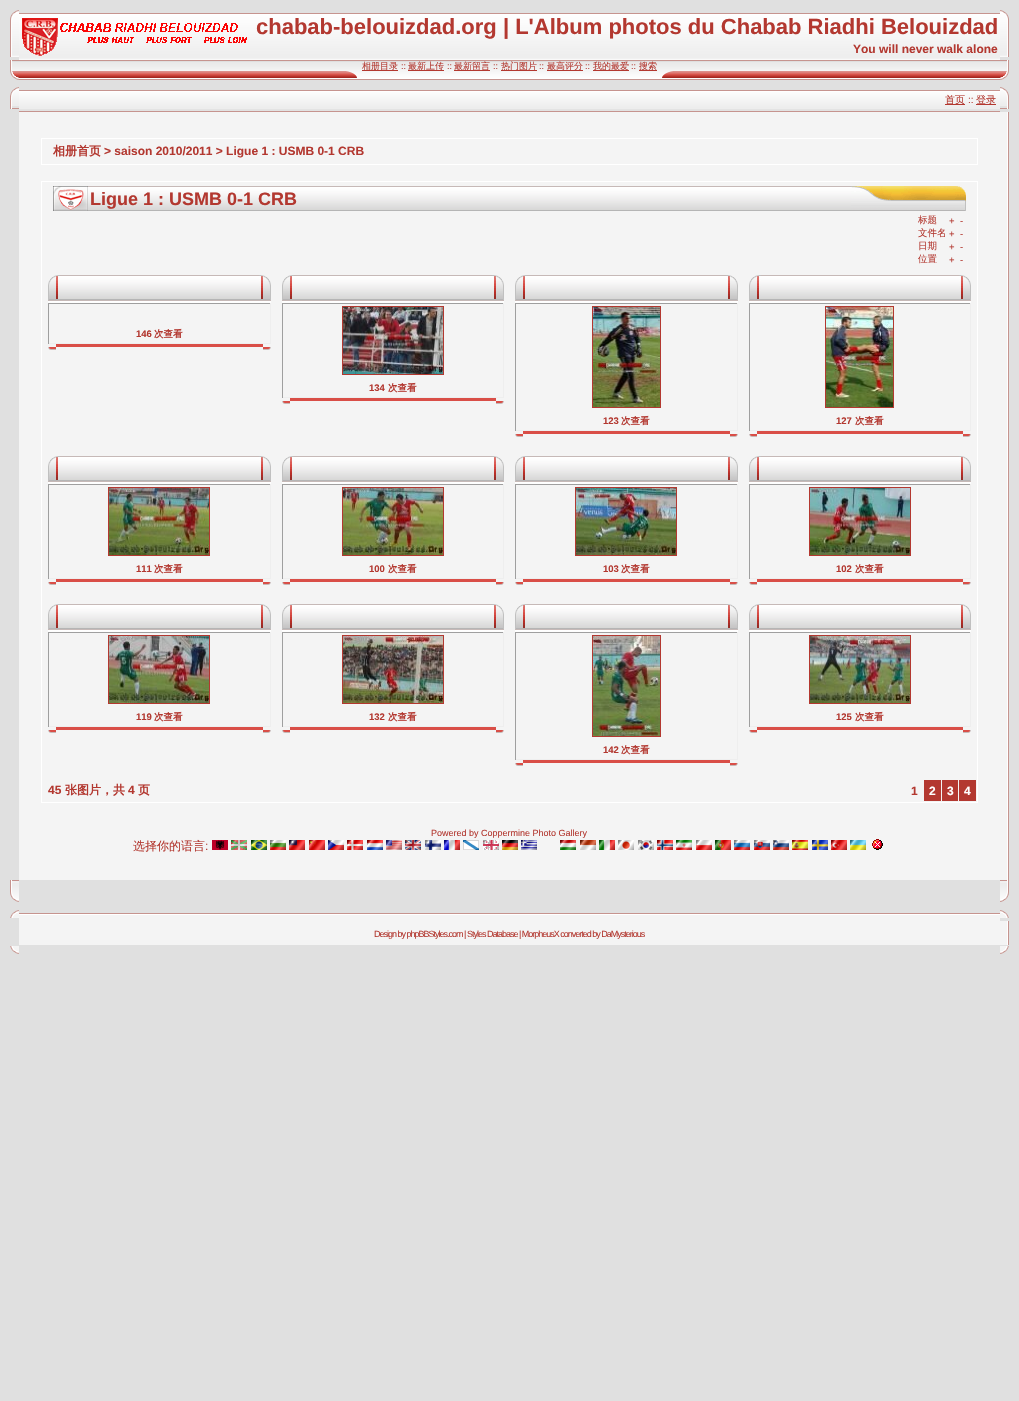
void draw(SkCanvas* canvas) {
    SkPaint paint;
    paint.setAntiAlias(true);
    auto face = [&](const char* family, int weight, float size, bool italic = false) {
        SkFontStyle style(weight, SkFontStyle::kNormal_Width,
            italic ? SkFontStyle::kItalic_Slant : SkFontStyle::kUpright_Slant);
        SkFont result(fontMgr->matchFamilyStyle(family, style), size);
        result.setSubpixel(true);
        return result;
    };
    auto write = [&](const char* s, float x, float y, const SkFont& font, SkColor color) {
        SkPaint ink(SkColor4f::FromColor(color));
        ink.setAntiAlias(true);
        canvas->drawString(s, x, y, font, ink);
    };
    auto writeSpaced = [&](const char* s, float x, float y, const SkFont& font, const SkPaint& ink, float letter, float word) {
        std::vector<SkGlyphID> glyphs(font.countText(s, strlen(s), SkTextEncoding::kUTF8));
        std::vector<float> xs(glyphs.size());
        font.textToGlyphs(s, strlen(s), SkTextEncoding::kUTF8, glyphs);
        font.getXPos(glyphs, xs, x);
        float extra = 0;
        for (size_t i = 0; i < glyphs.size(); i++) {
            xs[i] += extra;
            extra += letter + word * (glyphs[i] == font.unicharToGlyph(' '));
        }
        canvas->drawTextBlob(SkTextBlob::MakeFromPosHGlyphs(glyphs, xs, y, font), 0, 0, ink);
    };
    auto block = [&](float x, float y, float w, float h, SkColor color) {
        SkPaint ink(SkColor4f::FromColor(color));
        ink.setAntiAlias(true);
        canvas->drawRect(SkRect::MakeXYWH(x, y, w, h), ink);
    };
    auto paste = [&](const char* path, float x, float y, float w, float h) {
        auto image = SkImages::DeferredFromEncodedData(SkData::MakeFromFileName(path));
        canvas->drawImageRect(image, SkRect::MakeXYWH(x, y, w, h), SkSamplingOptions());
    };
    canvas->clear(SkColorSetRGB(224, 224, 224));
    paste("pic1.png", 10, 10, 9, 47);
    paste("pic2.png", 19, 13, 981, 47);
    paste("pic3.png", 22, 18, 225, 38);
    auto kFont1 = face("Liberation Sans", 700, 22);
    write("chabab-belouizdad.org | L'Album photos du Chabab Riadhi Belouizdad", 256, 34, kFont1, SkColorSetRGB(179, 56, 48));
    auto kFont2 = face("Liberation Sans", 700, 12);
    write("You will never walk alone", 853, 53, kFont2, SkColorSetRGB(179, 56, 48));
    paste("pic4.png", 1000, 10, 9, 47);
    paste("pic5.png", 10, 60, 9, 20);
    paste("pic6.png", 19, 60, 981, 20);
    paste("pic7.png", 357, 71, 305, 7);
    block(362, 70, 36, 1, SkColorSetRGB(179, 56, 48));
    auto kFont3 = face("WenQuanYi Zen Hei", 500, 9);
    write("相册目录", 362, 69, kFont3, SkColorSetRGB(179, 56, 48));
    auto kFont4 = face("Liberation Sans", 400, 9);
    write("::", 401, 69, kFont4, SkColorSetRGB(179, 56, 48));
    block(408, 70, 36, 1, SkColorSetRGB(179, 56, 48));
    write("最新上传", 408, 69, kFont3, SkColorSetRGB(179, 56, 48));
    write("::", 447, 69, kFont4, SkColorSetRGB(179, 56, 48));
    block(454, 70, 36, 1, SkColorSetRGB(179, 56, 48));
    write("最新留言", 454, 69, kFont3, SkColorSetRGB(179, 56, 48));
    write("::", 493, 69, kFont4, SkColorSetRGB(179, 56, 48));
    block(501, 70, 36, 1, SkColorSetRGB(179, 56, 48));
    write("热门图片", 501, 69, kFont3, SkColorSetRGB(179, 56, 48));
    write("::", 539, 69, kFont4, SkColorSetRGB(179, 56, 48));
    block(547, 70, 36, 1, SkColorSetRGB(179, 56, 48));
    write("最高评分", 547, 69, kFont3, SkColorSetRGB(179, 56, 48));
    write("::", 585, 69, kFont4, SkColorSetRGB(179, 56, 48));
    block(593, 70, 36, 1, SkColorSetRGB(179, 56, 48));
    write("我的最爱", 593, 69, kFont3, SkColorSetRGB(179, 56, 48));
    write("::", 631, 69, kFont4, SkColorSetRGB(179, 56, 48));
    block(639, 70, 18, 1, SkColorSetRGB(179, 56, 48));
    write("搜索", 639, 69, kFont3, SkColorSetRGB(179, 56, 48));
    paste("pic8.png", 346, 71, 11, 7);
    paste("pic9.png", 662, 71, 11, 7);
    paste("pic10.png", 1000, 60, 9, 20);
    paste("pic11.png", 10, 87, 9, 22);
    paste("pic12.png", 19, 90, 981, 22);
    block(945, 104, 20, 1, SkColorSetRGB(179, 56, 48));
    auto kFont5 = face("WenQuanYi Zen Hei", 500, 10);
    write("首页", 945, 103, kFont5, SkColorSetRGB(179, 56, 48));
    auto kFont6 = face("Liberation Sans", 400, 10);
    write("::", 968, 103, kFont6, SkColorSetRGB(179, 56, 48));
    block(976, 104, 20, 1, SkColorSetRGB(179, 56, 48));
    write("登录", 976, 103, kFont5, SkColorSetRGB(179, 56, 48));
    paste("pic13.png", 1000, 87, 9, 22);
    block(19, 112, 981, 768, SkColorSetRGB(244, 244, 244));
    paint.setStyle(SkPaint::kStroke_Style);
    paint.setStrokeWidth(1);
    paint.setColor(SK_ColorWHITE);
    canvas->drawRect(SkRect::MakeXYWH(41.5f, 138.5f, 936, 26), paint);
    auto kFont7 = face("WenQuanYi Zen Hei", 700, 12);
    write("相册首页", 53, 155, kFont7, SkColorSetRGB(179, 56, 48));
    write("> saison 2010/2011 > Ligue 1 : USMB 0-1 CRB", 104, 155, kFont2, SkColorSetRGB(179, 56, 48));
    canvas->drawRect(SkRect::MakeXYWH(41.5f, 181.5f, 936, 621), paint);
    paste("pic14.png", 88, 186, 763, 25);
    paste("pic15.png", 53, 186, 35, 25);
    auto kFont8 = face("Liberation Sans", 700, 18);
    write("Ligue 1 : USMB 0-1 CRB", 90, 205, kFont8, SkColorSetRGB(179, 56, 48));
    paste("pic16.png", 851, 186, 115, 25);
    auto kFont9 = face("WenQuanYi Zen Hei", 500, 9.5f);
    write("标题", 918, 223, kFont9, SkColorSetRGB(179, 56, 48));
    auto kFont10 = face("Liberation Sans", 400, 9.5f);
    write("+", 949, 224, kFont10, SkColorSetRGB(179, 56, 48));
    write("-", 960, 224, kFont10, SkColorSetRGB(179, 56, 48));
    write("文件名", 918, 236, kFont9, SkColorSetRGB(179, 56, 48));
    write("+", 949, 237, kFont10, SkColorSetRGB(179, 56, 48));
    write("-", 960, 237, kFont10, SkColorSetRGB(179, 56, 48));
    write("日期", 918, 249, kFont9, SkColorSetRGB(179, 56, 48));
    write("+", 949, 250, kFont10, SkColorSetRGB(179, 56, 48));
    write("-", 960, 250, kFont10, SkColorSetRGB(179, 56, 48));
    write("位置", 918, 262, kFont9, SkColorSetRGB(179, 56, 48));
    write("+", 949, 263, kFont10, SkColorSetRGB(179, 56, 48));
    write("-", 960, 263, kFont10, SkColorSetRGB(179, 56, 48));
    paste("pic17.png", 48, 275, 223, 28);
    paste("pic18.png", 48, 275, 12, 25);
    paste("pic19.png", 259, 275, 12, 25);
    block(48, 303, 223, 1, SkColorSetRGB(159, 159, 159));
    block(270, 303, 1, 41, SkColorSetRGB(238, 238, 238));
    block(48, 343, 223, 1, SkColorSetRGB(238, 238, 238));
    block(48, 303, 1, 41, SkColorSetRGB(159, 159, 159));
    auto kFont11 = face("Liberation Sans", 700, 9.5f);
    write("146", 136, 337, kFont11, SkColorSetRGB(179, 56, 48));
    auto kFont12 = face("WenQuanYi Zen Hei", 700, 9.5f);
    write("次查看", 154, 337, kFont12, SkColorSetRGB(179, 56, 48));
    block(56, 344, 207, 3, SkColorSetRGB(217, 78, 71));
    paste("pic20.png", 48, 347, 8, 3);
    paste("pic21.png", 263, 347, 8, 3);
    paste("pic22.png", 282, 275, 222, 28);
    paste("pic18.png", 282, 275, 12, 25);
    paste("pic19.png", 492, 275, 12, 25);
    block(282, 303, 222, 1, SkColorSetRGB(159, 159, 159));
    block(503, 303, 1, 95, SkColorSetRGB(238, 238, 238));
    block(282, 397, 222, 1, SkColorSetRGB(238, 238, 238));
    block(282, 303, 1, 95, SkColorSetRGB(159, 159, 159));
    paint.setColor(SkColorSetRGB(179, 56, 48));
    canvas->drawRect(SkRect::MakeXYWH(342.5f, 306.5f, 101, 68), paint);
    paste("pic23.png", 343, 307, 100, 67);
    write("134", 369, 391, kFont11, SkColorSetRGB(179, 56, 48));
    write("次查看", 388, 391, kFont12, SkColorSetRGB(179, 56, 48));
    block(290, 398, 206, 3, SkColorSetRGB(217, 78, 71));
    paste("pic20.png", 282, 401, 8, 3);
    paste("pic21.png", 496, 401, 8, 3);
    paste("pic17.png", 515, 275, 223, 28);
    paste("pic18.png", 515, 275, 12, 25);
    paste("pic19.png", 726, 275, 12, 25);
    block(515, 303, 223, 1, SkColorSetRGB(159, 159, 159));
    block(737, 303, 1, 128, SkColorSetRGB(238, 238, 238));
    block(515, 430, 223, 1, SkColorSetRGB(238, 238, 238));
    block(515, 303, 1, 128, SkColorSetRGB(159, 159, 159));
    canvas->drawRect(SkRect::MakeXYWH(592.5f, 306.5f, 68, 101), paint);
    paste("pic24.png", 593, 307, 67, 100);
    write("123", 603, 424, kFont11, SkColorSetRGB(179, 56, 48));
    write("次查看", 621, 424, kFont12, SkColorSetRGB(179, 56, 48));
    block(523, 431, 207, 3, SkColorSetRGB(217, 78, 71));
    paste("pic20.png", 515, 434, 8, 3);
    paste("pic21.png", 730, 434, 8, 3);
    paste("pic22.png", 749, 275, 222, 28);
    paste("pic18.png", 749, 275, 12, 25);
    paste("pic19.png", 959, 275, 12, 25);
    block(749, 303, 222, 1, SkColorSetRGB(159, 159, 159));
    block(970, 303, 1, 128, SkColorSetRGB(238, 238, 238));
    block(749, 430, 222, 1, SkColorSetRGB(238, 238, 238));
    block(749, 303, 1, 128, SkColorSetRGB(159, 159, 159));
    canvas->drawRect(SkRect::MakeXYWH(825.5f, 306.5f, 68, 101), paint);
    paste("pic25.png", 826, 307, 67, 100);
    write("127", 836, 424, kFont11, SkColorSetRGB(179, 56, 48));
    write("次查看", 855, 424, kFont12, SkColorSetRGB(179, 56, 48));
    block(757, 431, 206, 3, SkColorSetRGB(217, 78, 71));
    paste("pic20.png", 749, 434, 8, 3);
    paste("pic21.png", 963, 434, 8, 3);
    paste("pic17.png", 48, 456, 223, 28);
    paste("pic18.png", 48, 456, 12, 25);
    paste("pic19.png", 259, 456, 12, 25);
    block(48, 484, 223, 1, SkColorSetRGB(159, 159, 159));
    block(270, 484, 1, 95, SkColorSetRGB(238, 238, 238));
    block(48, 578, 223, 1, SkColorSetRGB(238, 238, 238));
    block(48, 484, 1, 95, SkColorSetRGB(159, 159, 159));
    canvas->drawRect(SkRect::MakeXYWH(108.5f, 487.5f, 101, 68), paint);
    paste("pic26.png", 109, 488, 100, 67);
    write("111", 136, 572, kFont11, SkColorSetRGB(179, 56, 48));
    write("次查看", 154, 572, kFont12, SkColorSetRGB(179, 56, 48));
    block(56, 579, 207, 3, SkColorSetRGB(217, 78, 71));
    paste("pic20.png", 48, 582, 8, 3);
    paste("pic21.png", 263, 582, 8, 3);
    paste("pic22.png", 282, 456, 222, 28);
    paste("pic18.png", 282, 456, 12, 25);
    paste("pic19.png", 492, 456, 12, 25);
    block(282, 484, 222, 1, SkColorSetRGB(159, 159, 159));
    block(503, 484, 1, 95, SkColorSetRGB(238, 238, 238));
    block(282, 578, 222, 1, SkColorSetRGB(238, 238, 238));
    block(282, 484, 1, 95, SkColorSetRGB(159, 159, 159));
    canvas->drawRect(SkRect::MakeXYWH(342.5f, 487.5f, 101, 68), paint);
    paste("pic27.png", 343, 488, 100, 67);
    write("100", 369, 572, kFont11, SkColorSetRGB(179, 56, 48));
    write("次查看", 388, 572, kFont12, SkColorSetRGB(179, 56, 48));
    block(290, 579, 206, 3, SkColorSetRGB(217, 78, 71));
    paste("pic20.png", 282, 582, 8, 3);
    paste("pic21.png", 496, 582, 8, 3);
    paste("pic17.png", 515, 456, 223, 28);
    paste("pic18.png", 515, 456, 12, 25);
    paste("pic19.png", 726, 456, 12, 25);
    block(515, 484, 223, 1, SkColorSetRGB(159, 159, 159));
    block(737, 484, 1, 95, SkColorSetRGB(238, 238, 238));
    block(515, 578, 223, 1, SkColorSetRGB(238, 238, 238));
    block(515, 484, 1, 95, SkColorSetRGB(159, 159, 159));
    canvas->drawRect(SkRect::MakeXYWH(575.5f, 487.5f, 101, 68), paint);
    paste("pic28.png", 576, 488, 100, 67);
    write("103", 603, 572, kFont11, SkColorSetRGB(179, 56, 48));
    write("次查看", 621, 572, kFont12, SkColorSetRGB(179, 56, 48));
    block(523, 579, 207, 3, SkColorSetRGB(217, 78, 71));
    paste("pic20.png", 515, 582, 8, 3);
    paste("pic21.png", 730, 582, 8, 3);
    paste("pic22.png", 749, 456, 222, 28);
    paste("pic18.png", 749, 456, 12, 25);
    paste("pic19.png", 959, 456, 12, 25);
    block(749, 484, 222, 1, SkColorSetRGB(159, 159, 159));
    block(970, 484, 1, 95, SkColorSetRGB(238, 238, 238));
    block(749, 578, 222, 1, SkColorSetRGB(238, 238, 238));
    block(749, 484, 1, 95, SkColorSetRGB(159, 159, 159));
    canvas->drawRect(SkRect::MakeXYWH(809.5f, 487.5f, 101, 68), paint);
    paste("pic29.png", 810, 488, 100, 67);
    write("102", 836, 572, kFont11, SkColorSetRGB(179, 56, 48));
    write("次查看", 855, 572, kFont12, SkColorSetRGB(179, 56, 48));
    block(757, 579, 206, 3, SkColorSetRGB(217, 78, 71));
    paste("pic20.png", 749, 582, 8, 3);
    paste("pic21.png", 963, 582, 8, 3);
    paste("pic17.png", 48, 604, 223, 28);
    paste("pic18.png", 48, 604, 12, 25);
    paste("pic19.png", 259, 604, 12, 25);
    block(48, 632, 223, 1, SkColorSetRGB(159, 159, 159));
    block(270, 632, 1, 95, SkColorSetRGB(238, 238, 238));
    block(48, 726, 223, 1, SkColorSetRGB(238, 238, 238));
    block(48, 632, 1, 95, SkColorSetRGB(159, 159, 159));
    canvas->drawRect(SkRect::MakeXYWH(108.5f, 635.5f, 101, 68), paint);
    paste("pic30.png", 109, 636, 100, 67);
    write("119", 136, 720, kFont11, SkColorSetRGB(179, 56, 48));
    write("次查看", 154, 720, kFont12, SkColorSetRGB(179, 56, 48));
    block(56, 727, 207, 3, SkColorSetRGB(217, 78, 71));
    paste("pic20.png", 48, 730, 8, 3);
    paste("pic21.png", 263, 730, 8, 3);
    paste("pic22.png", 282, 604, 222, 28);
    paste("pic18.png", 282, 604, 12, 25);
    paste("pic19.png", 492, 604, 12, 25);
    block(282, 632, 222, 1, SkColorSetRGB(159, 159, 159));
    block(503, 632, 1, 95, SkColorSetRGB(238, 238, 238));
    block(282, 726, 222, 1, SkColorSetRGB(238, 238, 238));
    block(282, 632, 1, 95, SkColorSetRGB(159, 159, 159));
    canvas->drawRect(SkRect::MakeXYWH(342.5f, 635.5f, 101, 68), paint);
    paste("pic31.png", 343, 636, 100, 67);
    write("132", 369, 720, kFont11, SkColorSetRGB(179, 56, 48));
    write("次查看", 388, 720, kFont12, SkColorSetRGB(179, 56, 48));
    block(290, 727, 206, 3, SkColorSetRGB(217, 78, 71));
    paste("pic20.png", 282, 730, 8, 3);
    paste("pic21.png", 496, 730, 8, 3);
    paste("pic22.png", 749, 604, 222, 28);
    paste("pic18.png", 749, 604, 12, 25);
    paste("pic19.png", 959, 604, 12, 25);
    block(749, 632, 222, 1, SkColorSetRGB(159, 159, 159));
    block(970, 632, 1, 95, SkColorSetRGB(238, 238, 238));
    block(749, 726, 222, 1, SkColorSetRGB(238, 238, 238));
    block(749, 632, 1, 95, SkColorSetRGB(159, 159, 159));
    canvas->drawRect(SkRect::MakeXYWH(809.5f, 635.5f, 101, 68), paint);
    paste("pic32.png", 810, 636, 100, 67);
    write("125", 836, 720, kFont11, SkColorSetRGB(179, 56, 48));
    write("次查看", 855, 720, kFont12, SkColorSetRGB(179, 56, 48));
    block(757, 727, 206, 3, SkColorSetRGB(217, 78, 71));
    paste("pic20.png", 749, 730, 8, 3);
    paste("pic21.png", 963, 730, 8, 3);
    paste("pic17.png", 515, 604, 223, 28);
    paste("pic18.png", 515, 604, 12, 25);
    paste("pic19.png", 726, 604, 12, 25);
    block(515, 632, 223, 1, SkColorSetRGB(159, 159, 159));
    block(737, 632, 1, 128, SkColorSetRGB(238, 238, 238));
    block(515, 759, 223, 1, SkColorSetRGB(238, 238, 238));
    block(515, 632, 1, 128, SkColorSetRGB(159, 159, 159));
    canvas->drawRect(SkRect::MakeXYWH(592.5f, 635.5f, 68, 101), paint);
    paste("pic33.png", 593, 636, 67, 100);
    write("142", 603, 753, kFont11, SkColorSetRGB(179, 56, 48));
    write("次查看", 621, 753, kFont12, SkColorSetRGB(179, 56, 48));
    block(523, 760, 207, 3, SkColorSetRGB(217, 78, 71));
    paste("pic20.png", 515, 763, 8, 3);
    paste("pic21.png", 730, 763, 8, 3);
    write("45", 48, 794, kFont2, SkColorSetRGB(179, 56, 48));
    write("张图片，共", 65, 794, kFont7, SkColorSetRGB(179, 56, 48));
    write("4", 128, 794, kFont2, SkColorSetRGB(179, 56, 48));
    write("页", 138, 794, kFont7, SkColorSetRGB(179, 56, 48));
    write("1", 911, 795, kFont2, SkColorSetRGB(179, 56, 48));
    block(924, 780, 17, 21, SkColorSetRGB(179, 56, 48));
    write("2", 929, 795, kFont2, SK_ColorWHITE);
    block(942, 780, 16, 21, SkColorSetRGB(179, 56, 48));
    write("3", 947, 795, kFont2, SK_ColorWHITE);
    block(959, 780, 17, 21, SkColorSetRGB(179, 56, 48));
    write("4", 964, 795, kFont2, SK_ColorWHITE);
    write("Powered by Coppermine Photo Gallery", 431, 836, kFont4, SkColorSetRGB(179, 56, 48));
    auto kFont13 = face("WenQuanYi Zen Hei", 500, 12);
    write("选择你的语言", 133, 850, kFont13, SkColorSetRGB(179, 56, 48));
    auto kFont14 = face("Liberation Sans", 400, 12);
    write(":", 205, 850, kFont14, SkColorSetRGB(179, 56, 48));
    paste("pic34.png", 212, 840, 16, 10);
    paste("pic35.png", 231, 840, 16, 10);
    paste("pic36.png", 251, 840, 16, 10);
    paste("pic37.png", 270, 840, 16, 10);
    paste("pic38.png", 289, 840, 16, 10);
    paste("pic39.png", 309, 840, 16, 10);
    paste("pic40.png", 328, 840, 16, 10);
    paste("pic41.png", 347, 840, 16, 10);
    paste("pic42.png", 367, 840, 16, 10);
    paste("pic43.png", 386, 840, 16, 10);
    paste("pic44.png", 405, 840, 16, 10);
    paste("pic45.png", 425, 840, 16, 10);
    paste("pic46.png", 444, 840, 16, 10);
    paste("pic47.png", 463, 840, 16, 10);
    paste("pic48.png", 483, 840, 16, 10);
    paste("pic49.png", 502, 840, 16, 10);
    paste("pic50.png", 521, 840, 16, 10);
    paste("pic51.png", 560, 840, 16, 10);
    paste("pic52.png", 580, 840, 16, 10);
    paste("pic53.png", 599, 840, 16, 10);
    paste("pic54.png", 618, 840, 16, 10);
    paste("pic55.png", 638, 840, 16, 10);
    paste("pic56.png", 657, 840, 16, 10);
    paste("pic57.png", 676, 840, 16, 10);
    paste("pic58.png", 696, 840, 16, 10);
    paste("pic59.png", 715, 840, 16, 10);
    paste("pic60.png", 734, 840, 16, 10);
    paste("pic61.png", 754, 840, 16, 10);
    paste("pic62.png", 773, 840, 16, 10);
    paste("pic63.png", 792, 840, 16, 10);
    paste("pic64.png", 812, 840, 16, 10);
    paste("pic65.png", 831, 840, 16, 10);
    paste("pic66.png", 850, 840, 16, 10);
    paste("pic67.png", 872, 839, 11, 11);
    paste("pic68.png", 1000, 112, 9, 768);
    paste("pic69.png", 10, 880, 9, 22);
    paste("pic70.png", 1000, 880, 9, 22);
    paste("pic71.png", 10, 910, 9, 8);
    paste("pic72.png", 19, 913, 981, 8);
    paste("pic73.png", 1000, 910, 9, 8);
    block(19, 921, 981, 24, SkColorSetRGB(244, 244, 244));
    paint.setStyle(SkPaint::kFill_Style);
    writeSpaced("Design by phpBBStyles.com | Styles Database | MorpheusX converted by DaMysterious", 374, 937, kFont4, paint, -1, 0);
    paste("pic74.png", 1000, 921, 9, 24);
    paste("pic75.png", 10, 946, 9, 8);
    paste("pic76.png", 1000, 946, 9, 8);
}
